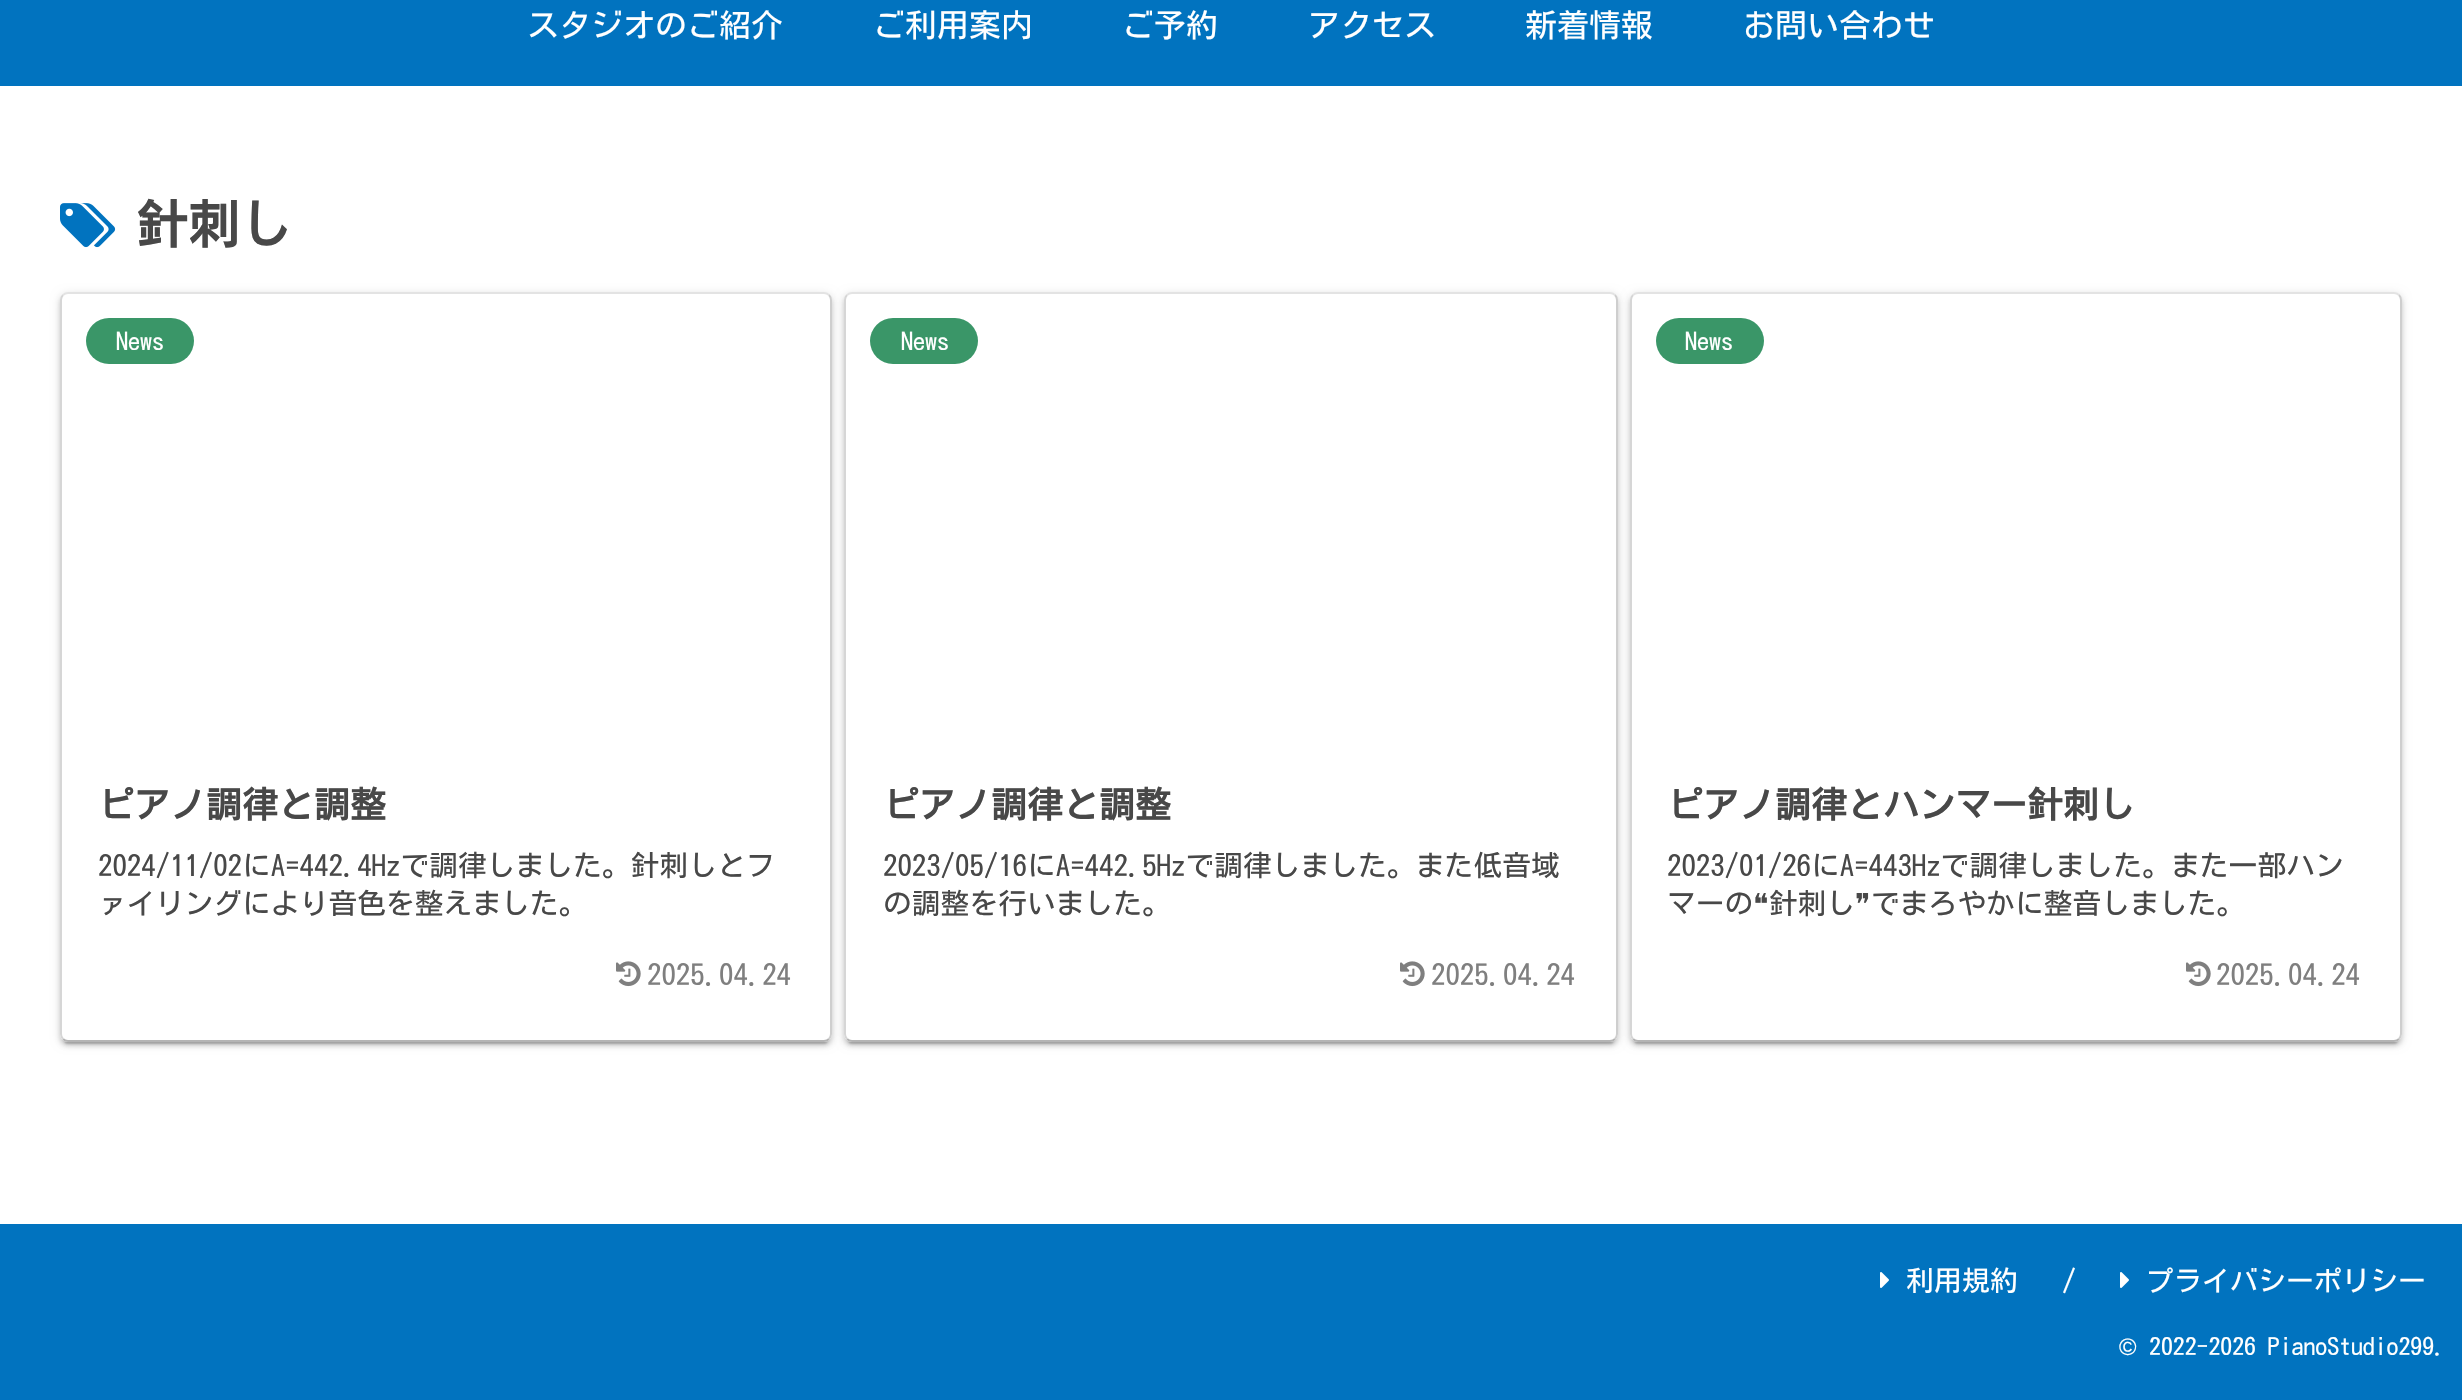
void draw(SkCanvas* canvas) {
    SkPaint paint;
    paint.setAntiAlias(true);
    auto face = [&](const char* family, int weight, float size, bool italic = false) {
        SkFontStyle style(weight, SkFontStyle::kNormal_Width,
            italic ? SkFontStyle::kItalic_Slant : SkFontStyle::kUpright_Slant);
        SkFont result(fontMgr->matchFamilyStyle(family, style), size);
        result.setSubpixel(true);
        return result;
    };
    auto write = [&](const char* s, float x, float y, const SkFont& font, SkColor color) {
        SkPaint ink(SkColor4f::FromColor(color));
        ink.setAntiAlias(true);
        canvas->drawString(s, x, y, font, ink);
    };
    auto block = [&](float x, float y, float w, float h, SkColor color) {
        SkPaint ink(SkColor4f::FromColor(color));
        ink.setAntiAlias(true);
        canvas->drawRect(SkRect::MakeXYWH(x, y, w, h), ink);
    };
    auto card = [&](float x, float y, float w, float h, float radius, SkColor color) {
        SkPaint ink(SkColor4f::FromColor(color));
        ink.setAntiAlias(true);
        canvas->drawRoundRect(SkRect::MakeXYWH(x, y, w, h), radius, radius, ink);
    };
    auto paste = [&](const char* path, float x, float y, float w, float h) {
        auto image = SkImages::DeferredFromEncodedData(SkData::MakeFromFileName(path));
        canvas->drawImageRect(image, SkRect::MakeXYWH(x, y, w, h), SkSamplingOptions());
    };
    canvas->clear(SK_ColorWHITE);
    block(0, 0, 2462, 86, SkColorSetRGB(1, 115, 191));
    auto kFont1 = face("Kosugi", 400, 32);
    write("スタジオのご紹介", 527, 37, kFont1, SK_ColorWHITE);
    write("ご利用案内", 873, 37, kFont1, SK_ColorWHITE);
    write("ご予約", 1122, 37, kFont1, SK_ColorWHITE);
    write("アクセス", 1308, 37, kFont1, SK_ColorWHITE);
    write("新着情報", 1525, 37, kFont1, SK_ColorWHITE);
    write("お問い合わせ", 1743, 37, kFont1, SK_ColorWHITE);
    paste("pic1.png", 60, 203, 56, 45);
    auto kFont2 = face("Kosugi", 700, 52);
    write("針刺し", 136, 244, kFont2, SkColorSetRGB(72, 72, 72));
    canvas->save();
    canvas->clipPath(SkPathBuilder(SkPathFillType::kEvenOdd).moveTo(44, 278).lineTo(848, 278).lineTo(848, 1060).lineTo(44, 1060).close().moveTo(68, 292).lineTo(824, 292).cubicTo(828.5f, 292, 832, 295.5f, 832, 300).lineTo(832, 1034).cubicTo(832, 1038.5f, 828.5f, 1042, 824, 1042).lineTo(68, 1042).cubicTo(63.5f, 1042, 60, 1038.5f, 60, 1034).lineTo(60, 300).cubicTo(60, 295.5f, 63.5f, 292, 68, 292).close().detach(), true);
    paint.setColor(SkColorSetARGB(31, 0, 0, 0));
    paint.setMaskFilter(SkMaskFilter::MakeBlur(kNormal_SkBlurStyle, 5));
    canvas->drawRoundRect(SkRect::MakeXYWH(60, 294, 772, 750), 8, 8, paint);
    paint.setMaskFilter(nullptr);
    canvas->restore();
    canvas->save();
    canvas->clipPath(SkPathBuilder(SkPathFillType::kEvenOdd).moveTo(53, 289).lineTo(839, 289).lineTo(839, 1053).lineTo(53, 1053).close().moveTo(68, 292).lineTo(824, 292).cubicTo(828.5f, 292, 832, 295.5f, 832, 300).lineTo(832, 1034).cubicTo(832, 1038.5f, 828.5f, 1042, 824, 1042).lineTo(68, 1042).cubicTo(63.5f, 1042, 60, 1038.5f, 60, 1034).lineTo(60, 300).cubicTo(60, 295.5f, 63.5f, 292, 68, 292).close().detach(), true);
    paint.setColor(SkColorSetARGB(36, 0, 0, 0));
    paint.setMaskFilter(SkMaskFilter::MakeBlur(kNormal_SkBlurStyle, 2));
    canvas->drawRoundRect(SkRect::MakeXYWH(60, 296, 772, 750), 8, 8, paint);
    paint.setMaskFilter(nullptr);
    canvas->restore();
    canvas->save();
    canvas->clipPath(SkPathBuilder(SkPathFillType::kEvenOdd).moveTo(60, 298).lineTo(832, 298).lineTo(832, 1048).lineTo(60, 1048).close().moveTo(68, 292).lineTo(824, 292).cubicTo(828.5f, 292, 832, 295.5f, 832, 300).lineTo(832, 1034).cubicTo(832, 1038.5f, 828.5f, 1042, 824, 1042).lineTo(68, 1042).cubicTo(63.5f, 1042, 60, 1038.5f, 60, 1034).lineTo(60, 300).cubicTo(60, 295.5f, 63.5f, 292, 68, 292).close().detach(), true);
    paint.setColor(SkColorSetARGB(51, 0, 0, 0));
    paint.setMaskFilter(SkMaskFilter::MakeBlur(kNormal_SkBlurStyle, 1));
    canvas->drawRoundRect(SkRect::MakeXYWH(64, 302, 764, 742), 4, 4, paint);
    paint.setMaskFilter(nullptr);
    canvas->restore();
    card(60, 292, 772, 750, 8, SkColorSetARGB(51, 255, 255, 255));
    paint.setStyle(SkPaint::kStroke_Style);
    paint.setStrokeWidth(2);
    paint.setColor(SkColorSetRGB(227, 227, 227));
    canvas->drawPath(SkPathBuilder().moveTo(63, 295).cubicTo(64.5f, 293.5f, 66, 293, 68, 293).lineTo(824, 293).cubicTo(826, 293, 827.5f, 293.5f, 829, 295).detach(), paint);
    paint.setColor(SkColorSetRGB(206, 206, 206));
    canvas->drawPath(SkPathBuilder().moveTo(829, 295).cubicTo(830.5f, 296.5f, 831, 298, 831, 300).lineTo(831, 1034).cubicTo(831, 1036, 830.5f, 1037.5f, 829, 1039).detach(), paint);
    paint.setColor(SkColorSetRGB(180, 180, 180));
    canvas->drawPath(SkPathBuilder().moveTo(829, 1039).cubicTo(827.5f, 1040.5f, 826, 1041, 824, 1041).lineTo(68, 1041).cubicTo(66, 1041, 64.5f, 1040.5f, 63, 1039).detach(), paint);
    paint.setColor(SkColorSetRGB(214, 214, 214));
    canvas->drawPath(SkPathBuilder().moveTo(63, 1039).cubicTo(61.5f, 1037.5f, 61, 1036, 61, 1034).lineTo(61, 300).cubicTo(61, 298, 61.5f, 296.5f, 63, 295).detach(), paint);
    card(86, 318, 108, 46, 23, SkColorSetRGB(58, 150, 104));
    auto kFont3 = face("Kosugi", 400, 24);
    write("News", 116, 350, kFont3, SK_ColorWHITE);
    auto kFont4 = face("Kosugi", 700, 36);
    write("ピアノ調律と調整", 98, 818, kFont4, SkColorSetRGB(72, 72, 72));
    auto kFont5 = face("Kosugi", 400, 28.8f);
    write("2024/11/02にA=442.4Hzで調律しました。針刺しとフ", 98, 876, kFont5, SkColorSetRGB(72, 72, 72));
    write("ァイリングにより音色を整えました。", 98, 914, kFont5, SkColorSetRGB(72, 72, 72));
    paste("pic2.png", 616, 961, 25, 26);
    write("2025.04.24", 647, 985, kFont5, SkColorSetRGB(127, 127, 127));
    canvas->save();
    canvas->clipPath(SkPathBuilder(SkPathFillType::kEvenOdd).moveTo(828, 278).lineTo(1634, 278).lineTo(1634, 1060).lineTo(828, 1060).close().moveTo(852, 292).lineTo(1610, 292).cubicTo(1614.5f, 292, 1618, 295.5f, 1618, 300).lineTo(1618, 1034).cubicTo(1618, 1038.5f, 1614.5f, 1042, 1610, 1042).lineTo(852, 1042).cubicTo(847.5f, 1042, 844, 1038.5f, 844, 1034).lineTo(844, 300).cubicTo(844, 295.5f, 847.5f, 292, 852, 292).close().detach(), true);
    paint.setStyle(SkPaint::kFill_Style);
    paint.setColor(SkColorSetARGB(31, 0, 0, 0));
    paint.setMaskFilter(SkMaskFilter::MakeBlur(kNormal_SkBlurStyle, 5));
    canvas->drawRoundRect(SkRect::MakeXYWH(844, 294, 774, 750), 8, 8, paint);
    paint.setMaskFilter(nullptr);
    canvas->restore();
    canvas->save();
    canvas->clipPath(SkPathBuilder(SkPathFillType::kEvenOdd).moveTo(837, 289).lineTo(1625, 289).lineTo(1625, 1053).lineTo(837, 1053).close().moveTo(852, 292).lineTo(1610, 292).cubicTo(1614.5f, 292, 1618, 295.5f, 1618, 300).lineTo(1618, 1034).cubicTo(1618, 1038.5f, 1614.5f, 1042, 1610, 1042).lineTo(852, 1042).cubicTo(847.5f, 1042, 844, 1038.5f, 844, 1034).lineTo(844, 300).cubicTo(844, 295.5f, 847.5f, 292, 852, 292).close().detach(), true);
    paint.setColor(SkColorSetARGB(36, 0, 0, 0));
    paint.setMaskFilter(SkMaskFilter::MakeBlur(kNormal_SkBlurStyle, 2));
    canvas->drawRoundRect(SkRect::MakeXYWH(844, 296, 774, 750), 8, 8, paint);
    paint.setMaskFilter(nullptr);
    canvas->restore();
    canvas->save();
    canvas->clipPath(SkPathBuilder(SkPathFillType::kEvenOdd).moveTo(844, 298).lineTo(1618, 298).lineTo(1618, 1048).lineTo(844, 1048).close().moveTo(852, 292).lineTo(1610, 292).cubicTo(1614.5f, 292, 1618, 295.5f, 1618, 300).lineTo(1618, 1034).cubicTo(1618, 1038.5f, 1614.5f, 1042, 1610, 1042).lineTo(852, 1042).cubicTo(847.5f, 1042, 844, 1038.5f, 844, 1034).lineTo(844, 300).cubicTo(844, 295.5f, 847.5f, 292, 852, 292).close().detach(), true);
    paint.setColor(SkColorSetARGB(51, 0, 0, 0));
    paint.setMaskFilter(SkMaskFilter::MakeBlur(kNormal_SkBlurStyle, 1));
    canvas->drawRoundRect(SkRect::MakeXYWH(848, 302, 766, 742), 4, 4, paint);
    paint.setMaskFilter(nullptr);
    canvas->restore();
    card(844, 292, 774, 750, 8, SkColorSetARGB(51, 255, 255, 255));
    paint.setStyle(SkPaint::kStroke_Style);
    paint.setColor(SkColorSetRGB(227, 227, 227));
    canvas->drawPath(SkPathBuilder().moveTo(847, 295).cubicTo(848.5f, 293.5f, 850, 293, 852, 293).lineTo(1610, 293).cubicTo(1612, 293, 1613.5f, 293.5f, 1615, 295).detach(), paint);
    paint.setColor(SkColorSetRGB(206, 206, 206));
    canvas->drawPath(SkPathBuilder().moveTo(1615, 295).cubicTo(1616.5f, 296.5f, 1617, 298, 1617, 300).lineTo(1617, 1034).cubicTo(1617, 1036, 1616.5f, 1037.5f, 1615, 1039).detach(), paint);
    paint.setColor(SkColorSetRGB(180, 180, 180));
    canvas->drawPath(SkPathBuilder().moveTo(1615, 1039).cubicTo(1613.5f, 1040.5f, 1612, 1041, 1610, 1041).lineTo(852, 1041).cubicTo(850, 1041, 848.5f, 1040.5f, 847, 1039).detach(), paint);
    paint.setColor(SkColorSetRGB(214, 214, 214));
    canvas->drawPath(SkPathBuilder().moveTo(847, 1039).cubicTo(845.5f, 1037.5f, 845, 1036, 845, 1034).lineTo(845, 300).cubicTo(845, 298, 845.5f, 296.5f, 847, 295).detach(), paint);
    card(870, 318, 108, 46, 23, SkColorSetRGB(58, 150, 104));
    write("News", 901, 350, kFont3, SK_ColorWHITE);
    write("ピアノ調律と調整", 883, 818, kFont4, SkColorSetRGB(72, 72, 72));
    write("2023/05/16にA=442.5Hzで調律しました。また低音域", 883, 876, kFont5, SkColorSetRGB(72, 72, 72));
    write("の調整を行いました。", 883, 914, kFont5, SkColorSetRGB(72, 72, 72));
    paste("pic2.png", 1400, 961, 25, 26);
    write("2025.04.24", 1431, 985, kFont5, SkColorSetRGB(127, 127, 127));
    canvas->save();
    canvas->clipPath(SkPathBuilder(SkPathFillType::kEvenOdd).moveTo(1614, 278).lineTo(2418, 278).lineTo(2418, 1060).lineTo(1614, 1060).close().moveTo(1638, 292).lineTo(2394, 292).cubicTo(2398.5f, 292, 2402, 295.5f, 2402, 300).lineTo(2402, 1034).cubicTo(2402, 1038.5f, 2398.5f, 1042, 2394, 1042).lineTo(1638, 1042).cubicTo(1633.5f, 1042, 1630, 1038.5f, 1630, 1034).lineTo(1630, 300).cubicTo(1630, 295.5f, 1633.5f, 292, 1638, 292).close().detach(), true);
    paint.setStyle(SkPaint::kFill_Style);
    paint.setColor(SkColorSetARGB(31, 0, 0, 0));
    paint.setMaskFilter(SkMaskFilter::MakeBlur(kNormal_SkBlurStyle, 5));
    canvas->drawRoundRect(SkRect::MakeXYWH(1630, 294, 772, 750), 8, 8, paint);
    paint.setMaskFilter(nullptr);
    canvas->restore();
    canvas->save();
    canvas->clipPath(SkPathBuilder(SkPathFillType::kEvenOdd).moveTo(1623, 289).lineTo(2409, 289).lineTo(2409, 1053).lineTo(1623, 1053).close().moveTo(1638, 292).lineTo(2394, 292).cubicTo(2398.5f, 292, 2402, 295.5f, 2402, 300).lineTo(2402, 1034).cubicTo(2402, 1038.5f, 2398.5f, 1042, 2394, 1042).lineTo(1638, 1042).cubicTo(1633.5f, 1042, 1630, 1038.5f, 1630, 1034).lineTo(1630, 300).cubicTo(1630, 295.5f, 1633.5f, 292, 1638, 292).close().detach(), true);
    paint.setColor(SkColorSetARGB(36, 0, 0, 0));
    paint.setMaskFilter(SkMaskFilter::MakeBlur(kNormal_SkBlurStyle, 2));
    canvas->drawRoundRect(SkRect::MakeXYWH(1630, 296, 772, 750), 8, 8, paint);
    paint.setMaskFilter(nullptr);
    canvas->restore();
    canvas->save();
    canvas->clipPath(SkPathBuilder(SkPathFillType::kEvenOdd).moveTo(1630, 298).lineTo(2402, 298).lineTo(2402, 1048).lineTo(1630, 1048).close().moveTo(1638, 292).lineTo(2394, 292).cubicTo(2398.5f, 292, 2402, 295.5f, 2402, 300).lineTo(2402, 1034).cubicTo(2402, 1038.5f, 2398.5f, 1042, 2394, 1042).lineTo(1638, 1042).cubicTo(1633.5f, 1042, 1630, 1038.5f, 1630, 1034).lineTo(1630, 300).cubicTo(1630, 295.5f, 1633.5f, 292, 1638, 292).close().detach(), true);
    paint.setColor(SkColorSetARGB(51, 0, 0, 0));
    paint.setMaskFilter(SkMaskFilter::MakeBlur(kNormal_SkBlurStyle, 1));
    canvas->drawRoundRect(SkRect::MakeXYWH(1634, 302, 764, 742), 4, 4, paint);
    paint.setMaskFilter(nullptr);
    canvas->restore();
    card(1630, 292, 772, 750, 8, SkColorSetARGB(51, 255, 255, 255));
    paint.setStyle(SkPaint::kStroke_Style);
    paint.setColor(SkColorSetRGB(227, 227, 227));
    canvas->drawPath(SkPathBuilder().moveTo(1633, 295).cubicTo(1634.5f, 293.5f, 1636, 293, 1638, 293).lineTo(2394, 293).cubicTo(2396, 293, 2397.5f, 293.5f, 2399, 295).detach(), paint);
    paint.setColor(SkColorSetRGB(206, 206, 206));
    canvas->drawPath(SkPathBuilder().moveTo(2399, 295).cubicTo(2400.5f, 296.5f, 2401, 298, 2401, 300).lineTo(2401, 1034).cubicTo(2401, 1036, 2400.5f, 1037.5f, 2399, 1039).detach(), paint);
    paint.setColor(SkColorSetRGB(180, 180, 180));
    canvas->drawPath(SkPathBuilder().moveTo(2399, 1039).cubicTo(2397.5f, 1040.5f, 2396, 1041, 2394, 1041).lineTo(1638, 1041).cubicTo(1636, 1041, 1634.5f, 1040.5f, 1633, 1039).detach(), paint);
    paint.setColor(SkColorSetRGB(214, 214, 214));
    canvas->drawPath(SkPathBuilder().moveTo(1633, 1039).cubicTo(1631.5f, 1037.5f, 1631, 1036, 1631, 1034).lineTo(1631, 300).cubicTo(1631, 298, 1631.5f, 296.5f, 1633, 295).detach(), paint);
    card(1656, 318, 108, 46, 23, SkColorSetRGB(58, 150, 104));
    write("News", 1685, 350, kFont3, SK_ColorWHITE);
    write("ピアノ調律とハンマー針刺し", 1667, 818, kFont4, SkColorSetRGB(72, 72, 72));
    write("2023/01/26にA=443Hzで調律しました。また一部ハン", 1667, 876, kFont5, SkColorSetRGB(72, 72, 72));
    write("マーの", 1667, 914, kFont5, SkColorSetRGB(72, 72, 72));
    auto kFont6 = face("DejaVu Sans", 400, 28.8f);
    write("❝", 1753, 914, kFont6, SkColorSetRGB(72, 72, 72));
    write("針刺し", 1769, 914, kFont5, SkColorSetRGB(72, 72, 72));
    write("❞", 1855, 914, kFont6, SkColorSetRGB(72, 72, 72));
    write("でまろやかに整音しました。", 1871, 914, kFont5, SkColorSetRGB(72, 72, 72));
    paste("pic2.png", 2186, 961, 25, 26);
    write("2025.04.24", 2216, 985, kFont5, SkColorSetRGB(127, 127, 127));
    block(0, 1224, 2462, 176, SkColorSetRGB(1, 115, 191));
    paste("pic3.png", 1880, 1272, 9, 16);
    auto kFont7 = face("Kosugi", 400, 28);
    write("利用規約", 1906, 1291, kFont7, SK_ColorWHITE);
    write("/", 2062, 1291, kFont7, SK_ColorWHITE);
    paste("pic3.png", 2120, 1272, 9, 16);
    write("プライバシーポリシー", 2146, 1291, kFont7, SK_ColorWHITE);
    auto kFont8 = face("Liberation Sans", 400, 23.75f);
    write("©", 2119, 1355, kFont8, SK_ColorWHITE);
    auto kFont9 = face("Kosugi", 400, 23.75f);
    write("2022-2026 PianoStudio299.", 2149, 1355, kFont9, SK_ColorWHITE);
}
